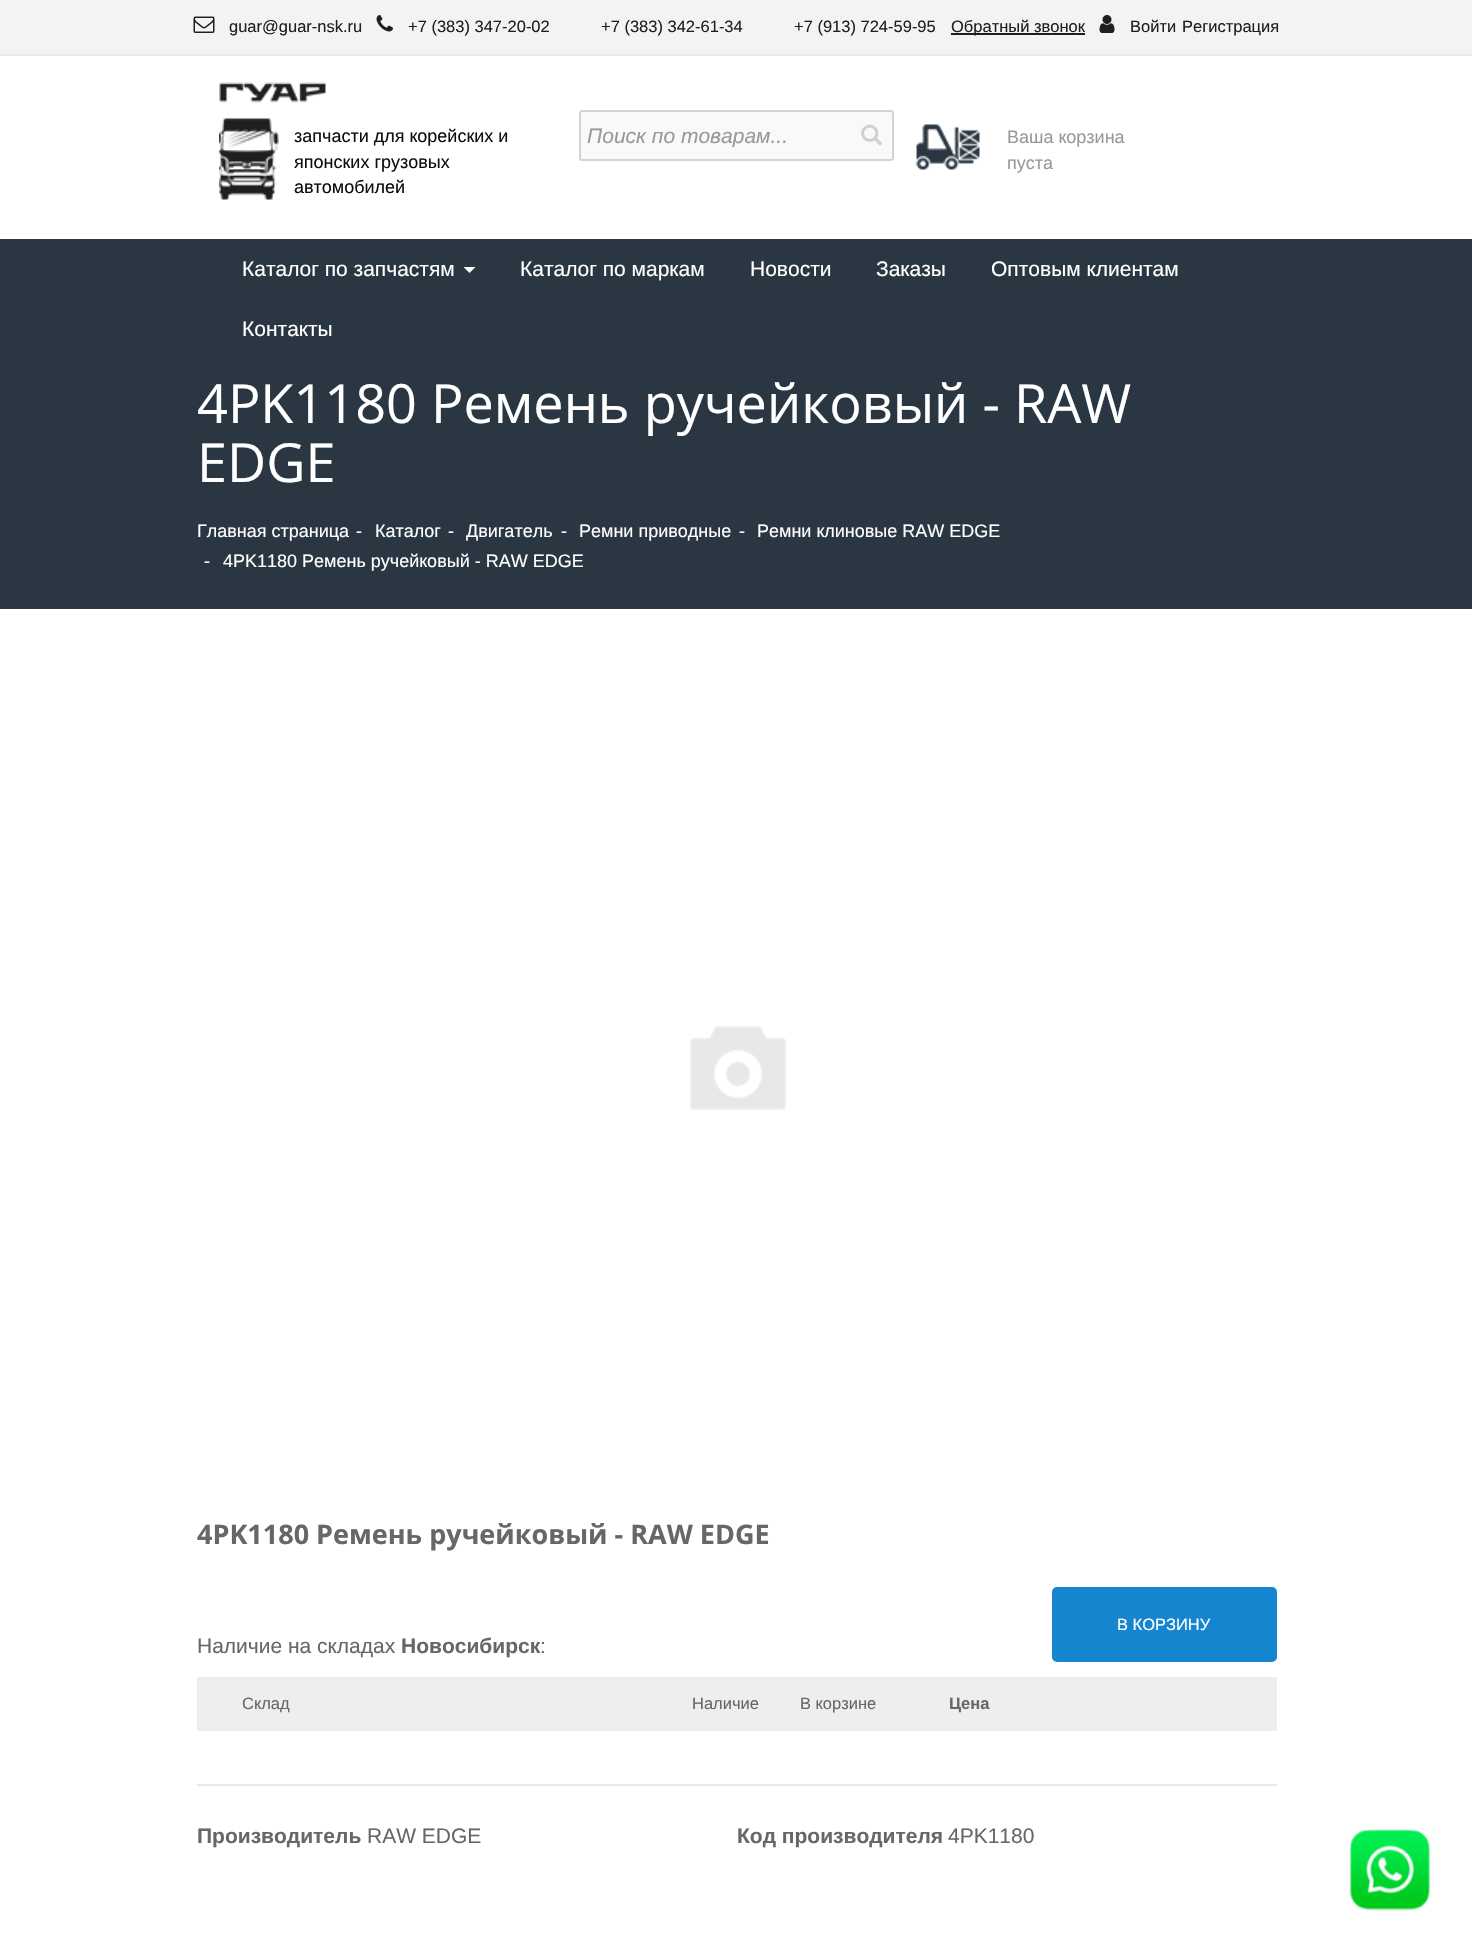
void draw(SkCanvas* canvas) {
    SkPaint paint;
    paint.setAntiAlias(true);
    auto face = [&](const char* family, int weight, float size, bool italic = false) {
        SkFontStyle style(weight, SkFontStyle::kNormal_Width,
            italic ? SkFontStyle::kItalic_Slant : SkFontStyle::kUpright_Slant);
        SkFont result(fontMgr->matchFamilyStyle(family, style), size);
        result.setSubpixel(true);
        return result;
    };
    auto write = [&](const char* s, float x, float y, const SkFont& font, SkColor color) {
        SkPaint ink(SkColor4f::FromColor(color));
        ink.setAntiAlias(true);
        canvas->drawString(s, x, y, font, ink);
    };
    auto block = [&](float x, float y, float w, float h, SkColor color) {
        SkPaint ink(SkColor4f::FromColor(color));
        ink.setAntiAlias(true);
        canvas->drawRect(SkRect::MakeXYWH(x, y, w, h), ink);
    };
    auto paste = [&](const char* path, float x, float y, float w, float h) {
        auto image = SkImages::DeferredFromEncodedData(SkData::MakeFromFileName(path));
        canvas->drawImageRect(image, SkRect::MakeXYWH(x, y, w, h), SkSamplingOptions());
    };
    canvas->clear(SK_ColorWHITE);
    block(0, 0, 1472, 54, SkColorSetRGB(243, 243, 243));
    block(0, 54, 1472, 2, SkColorSetRGB(232, 232, 232));
    paste("pic1.png", 193, 16, 22, 17);
    auto kFont1 = face("Liberation Sans", 400, 16.5f);
    write("guar@guar-nsk.ru", 229, 32, kFont1, SkColorSetRGB(31, 31, 31));
    paste("pic2.png", 376, 15, 17, 17);
    write("+7 (383) 347-20-02", 408, 32, kFont1, SkColorSetRGB(31, 31, 31));
    write("+7 (383) 342-61-34", 601, 32, kFont1, SkColorSetRGB(31, 31, 31));
    write("+7 (913) 724-59-95", 794, 32, kFont1, SkColorSetRGB(31, 31, 31));
    block(951, 33, 134, 2, SkColorSetRGB(31, 31, 31));
    write("Обратный звонок", 951, 32, kFont1, SkColorSetRGB(31, 31, 31));
    paste("pic3.png", 1099, 15, 16, 18);
    write("Войти", 1130, 32, kFont1, SkColorSetRGB(31, 31, 31));
    write("Регистрация", 1182, 32, kFont1, SkColorSetRGB(31, 31, 31));
    paste("pic4.png", 219, 82, 107, 21);
    paste("pic5.png", 219, 118, 60, 82);
    auto kFont2 = face("Liberation Sans", 400, 18);
    write("запчасти для корейских и", 294, 142, kFont2, SkColorSetRGB(14, 14, 14));
    write("японских грузовых", 294, 168, kFont2, SkColorSetRGB(14, 14, 14));
    write("автомобилей", 294, 193, kFont2, SkColorSetRGB(14, 14, 14));
    paint.setColor(SkColorSetRGB(249, 249, 249));
    canvas->drawRoundRect(SkRect::MakeXYWH(580, 111, 313, 49), 2, 2, paint);
    paint.setStyle(SkPaint::kStroke_Style);
    paint.setStrokeWidth(2);
    paint.setColor(SkColorSetRGB(204, 213, 219));
    canvas->drawRoundRect(SkRect::MakeXYWH(580, 111, 313, 49), 2, 2, paint);
    canvas->save();
    canvas->clipRect(SkRect::MakeXYWH(587, 123, 256, 24));
    auto kFont3 = face("Liberation Sans", 400, 21, true);
    write("Поиск по товарам...", 587, 143, kFont3, SkColorSetRGB(153, 153, 153));
    canvas->restore();
    paste("pic6.png", 861, 124, 21, 22);
    paste("pic7.png", 916, 124, 64, 46);
    write("Ваша корзина", 1007, 143, kFont2, SkColorSetRGB(153, 153, 153));
    write("пуста", 1007, 169, kFont2, SkColorSetRGB(153, 153, 153));
    block(0, 239, 1472, 370, SkColorSetRGB(42, 55, 67));
    auto kFont4 = face("Liberation Sans", 400, 21);
    write("Каталог по запчастям", 242, 276, kFont4, SK_ColorWHITE);
    paint.setStyle(SkPaint::kFill_Style);
    paint.setColor(SK_ColorWHITE);
    canvas->drawPath(SkPathBuilder().moveTo(463.5f, 267).lineTo(475.5f, 267).lineTo(469.5f, 273).close().detach(), paint);
    write("Каталог по маркам", 520, 276, kFont4, SK_ColorWHITE);
    write("Новости", 750, 276, kFont4, SK_ColorWHITE);
    write("Заказы", 876, 276, kFont4, SK_ColorWHITE);
    write("Оптовым клиентам", 991, 276, kFont4, SK_ColorWHITE);
    write("Контакты", 242, 336, kFont4, SK_ColorWHITE);
    auto kFont5 = face("Open Sans", 400, 54);
    write("4PK1180 Ремень ручейковый - RAW", 197, 423, kFont5, SK_ColorWHITE);
    write("EDGE", 197, 482, kFont5, SK_ColorWHITE);
    write("Главная страница", 197, 537, kFont2, SK_ColorWHITE);
    write("-", 356, 537, kFont2, SK_ColorWHITE);
    write("Каталог", 375, 537, kFont2, SK_ColorWHITE);
    write("-", 448, 537, kFont2, SK_ColorWHITE);
    write("Двигатель", 466, 537, kFont2, SK_ColorWHITE);
    write("-", 561, 537, kFont2, SK_ColorWHITE);
    write("Ремни приводные", 579, 537, kFont2, SK_ColorWHITE);
    write("-", 739, 537, kFont2, SK_ColorWHITE);
    write("Ремни клиновые RAW EDGE", 757, 537, kFont2, SK_ColorWHITE);
    write("-", 204, 567, kFont2, SK_ColorWHITE);
    write("4PK1180 Ремень ручейковый - RAW EDGE", 223, 567, kFont2, SK_ColorWHITE);
    paste("pic8.png", 690, 1026, 96, 84);
    auto kFont6 = face("Open Sans", 700, 27);
    write("4PK1180 Ремень ручейковый - RAW EDGE", 197, 1544, kFont6, SkColorSetRGB(103, 103, 103));
    paint.setColor(SkColorSetRGB(20, 133, 206));
    canvas->drawRoundRect(SkRect::MakeXYWH(1053, 1588, 223, 73), 4, 4, paint);
    paint.setStyle(SkPaint::kStroke_Style);
    canvas->drawRoundRect(SkRect::MakeXYWH(1053, 1588, 223, 73), 4, 4, paint);
    write("В КОРЗИНУ", 1117, 1630, kFont1, SK_ColorWHITE);
    write("Наличие на складах", 197, 1653, kFont4, SkColorSetRGB(103, 103, 103));
    auto kFont7 = face("Liberation Sans", 700, 21);
    write("Новосибирск", 401, 1653, kFont7, SkColorSetRGB(103, 103, 103));
    write(":", 540, 1653, kFont4, SkColorSetRGB(103, 103, 103));
    block(197, 1677, 1080, 54, SkColorSetRGB(238, 238, 238));
    write("Склад", 242, 1709, kFont1, SkColorSetRGB(103, 103, 103));
    write("Наличие", 692, 1709, kFont1, SkColorSetRGB(103, 103, 103));
    write("В корзине", 800, 1709, kFont1, SkColorSetRGB(103, 103, 103));
    auto kFont8 = face("Liberation Sans", 700, 16.5f);
    write("Цена", 949, 1709, kFont8, SkColorSetRGB(103, 103, 103));
    block(197, 1784, 1080, 2, SkColorSetRGB(233, 233, 233));
    write("Производитель", 197, 1843, kFont7, SkColorSetRGB(103, 103, 103));
    write("RAW EDGE", 367, 1843, kFont4, SkColorSetRGB(103, 103, 103));
    write("Код производителя", 737, 1843, kFont7, SkColorSetRGB(103, 103, 103));
    write("4PK1180", 948, 1843, kFont4, SkColorSetRGB(103, 103, 103));
    paste("pic9.png", 1350, 1829, 81, 82);
}
